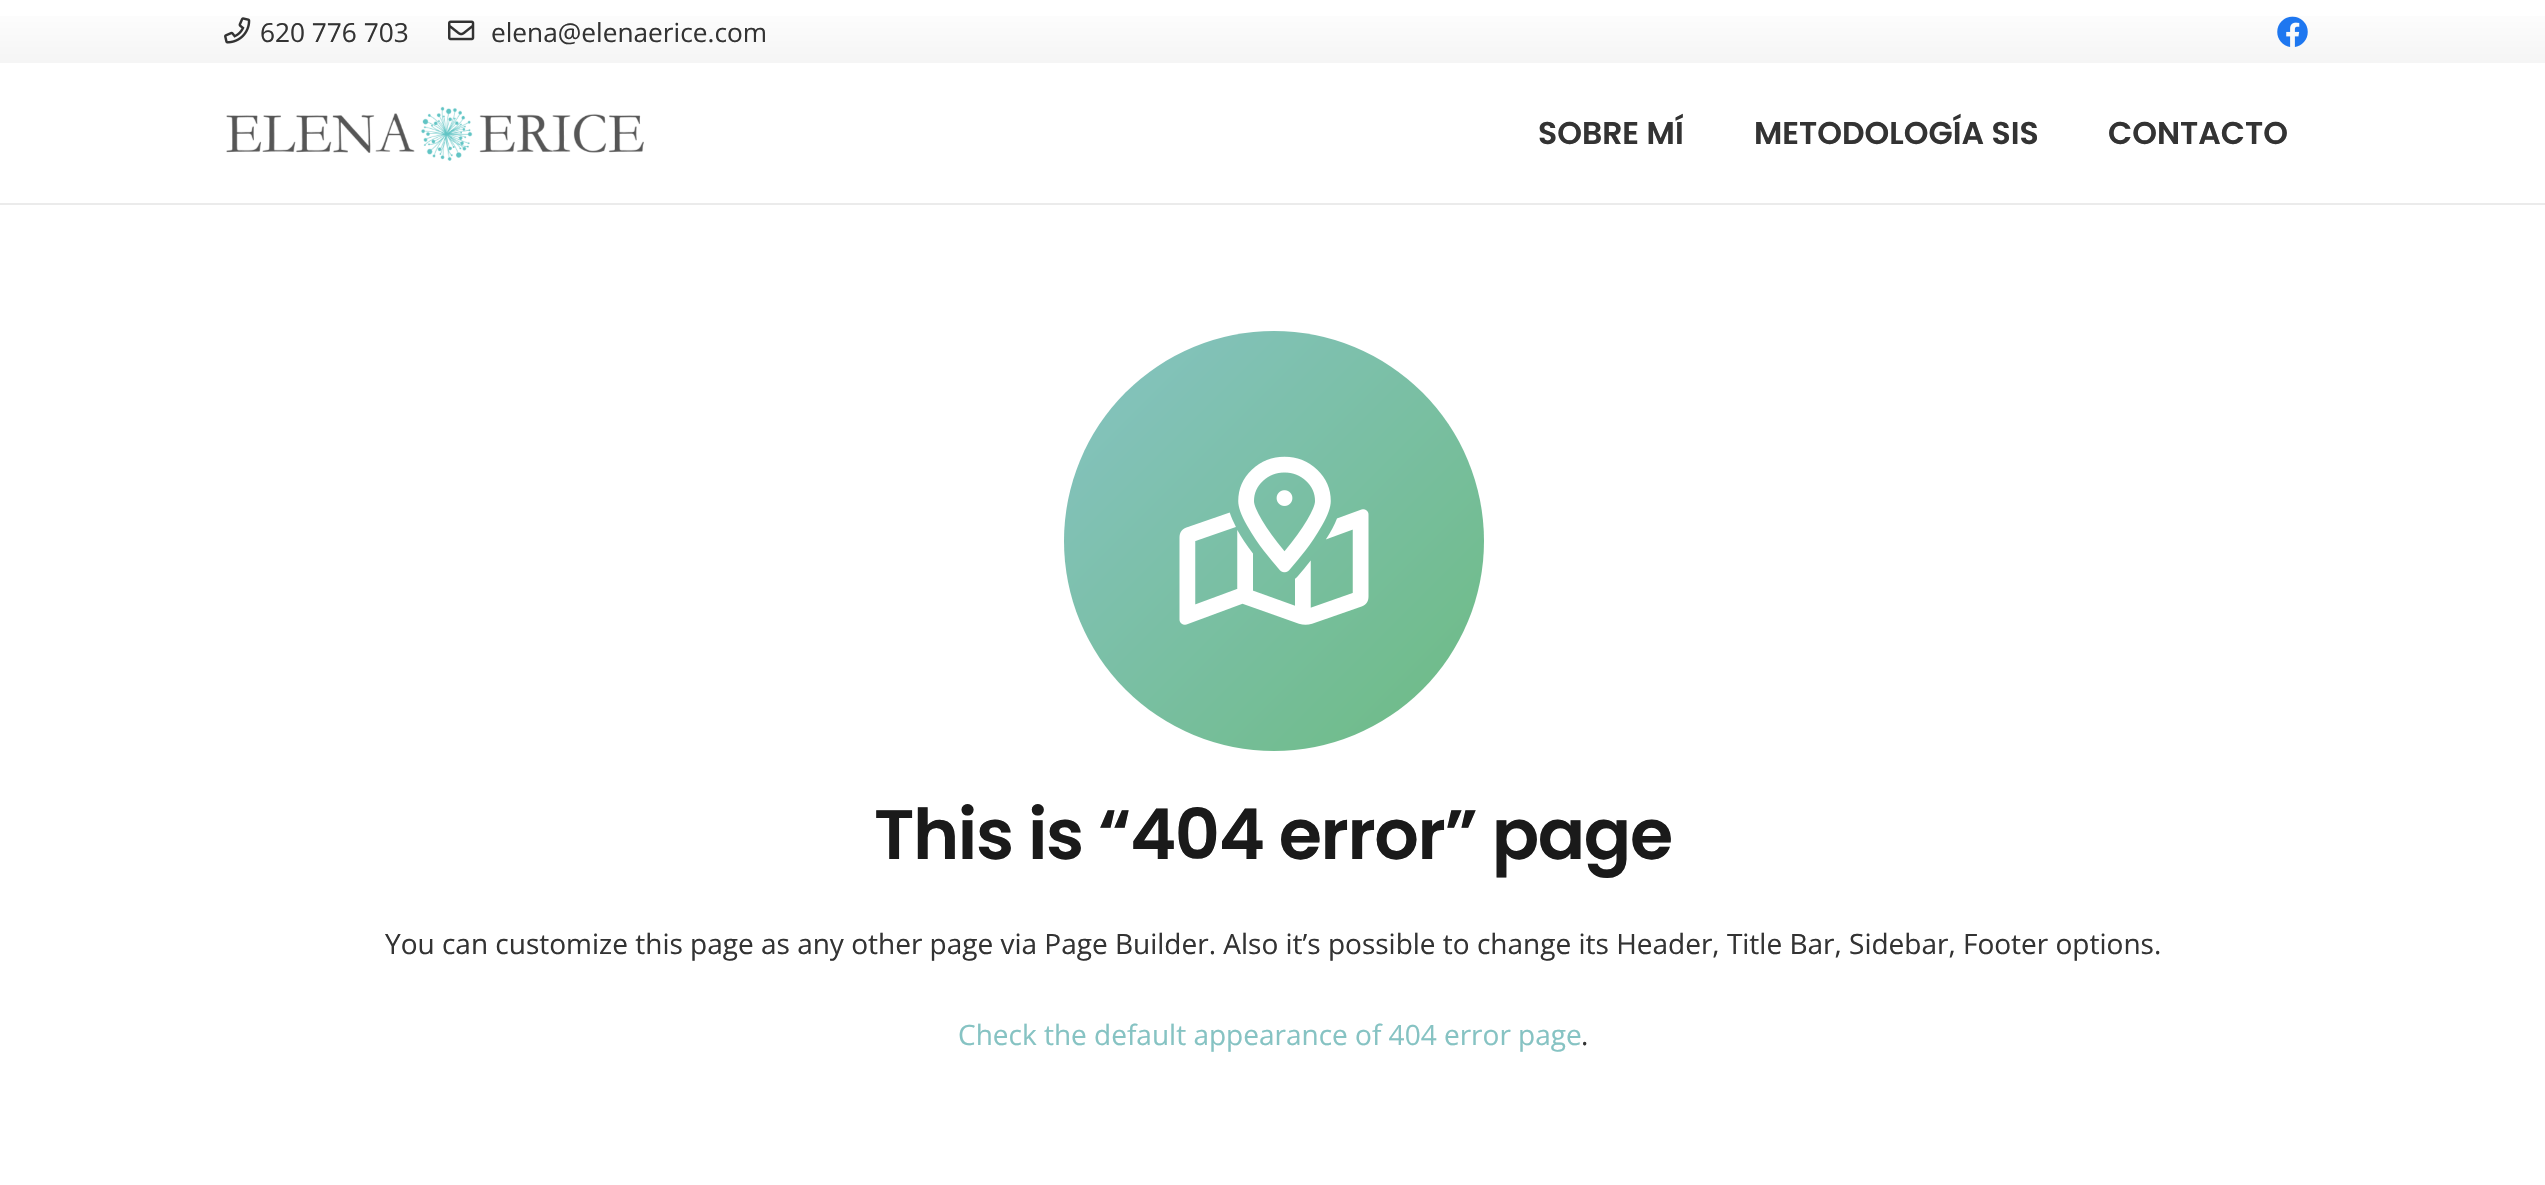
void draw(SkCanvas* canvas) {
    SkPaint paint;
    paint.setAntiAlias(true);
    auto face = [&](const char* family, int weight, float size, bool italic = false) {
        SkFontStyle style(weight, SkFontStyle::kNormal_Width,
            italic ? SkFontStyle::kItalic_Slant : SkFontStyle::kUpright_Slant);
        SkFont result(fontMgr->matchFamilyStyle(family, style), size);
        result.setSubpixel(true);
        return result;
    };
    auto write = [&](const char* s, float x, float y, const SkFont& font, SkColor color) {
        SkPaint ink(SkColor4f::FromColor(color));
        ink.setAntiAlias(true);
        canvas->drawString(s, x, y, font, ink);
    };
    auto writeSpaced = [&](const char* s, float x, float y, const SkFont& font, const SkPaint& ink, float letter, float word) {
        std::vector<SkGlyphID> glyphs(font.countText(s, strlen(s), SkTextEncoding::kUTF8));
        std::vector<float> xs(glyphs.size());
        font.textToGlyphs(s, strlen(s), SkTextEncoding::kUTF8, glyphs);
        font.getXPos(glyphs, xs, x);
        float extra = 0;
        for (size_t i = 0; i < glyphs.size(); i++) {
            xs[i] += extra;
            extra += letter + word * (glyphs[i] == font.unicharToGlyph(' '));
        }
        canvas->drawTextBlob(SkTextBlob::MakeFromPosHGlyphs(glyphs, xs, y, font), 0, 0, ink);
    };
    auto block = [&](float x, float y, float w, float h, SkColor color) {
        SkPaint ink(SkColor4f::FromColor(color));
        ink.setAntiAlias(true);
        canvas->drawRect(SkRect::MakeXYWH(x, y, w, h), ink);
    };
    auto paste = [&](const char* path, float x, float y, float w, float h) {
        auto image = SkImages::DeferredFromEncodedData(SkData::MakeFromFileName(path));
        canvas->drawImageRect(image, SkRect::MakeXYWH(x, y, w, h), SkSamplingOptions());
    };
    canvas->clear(SK_ColorWHITE);
    {
        const SkColor colors[] = {SkColorSetRGB(245, 245, 245), SK_ColorWHITE};
        const float stops[] = {0, 1};
        const SkPoint ends[] = {{1273, 63}, {1273, 0}};
        paint.setShader(SkGradientShader::MakeLinear(ends, colors, stops, 2, SkTileMode::kClamp));
        paint.setAlpha(255);
    }
    canvas->drawRect(SkRect::MakeXYWH(0, 16, 2545, 47), paint);
    paste("pic1.png", 224, 17, 27, 27);
    auto kFont1 = face("Open Sans", 400, 26.25f);
    write("620 776 703", 260, 42, kFont1, SkColorSetRGB(51, 51, 51));
    paste("pic2.png", 448, 20, 27, 21);
    write("elena@elenaerice.com", 491, 42, kFont1, SkColorSetRGB(51, 51, 51));
    paste("pic3.png", 2277, 16, 31, 31);
    block(0, 203, 2545, 2, SkColorSetRGB(235, 235, 235));
    paste("pic4.png", 226, 106, 418, 55);
    auto kFont2 = face("Poppins", 600, 31.5f);
    write("SOBRE MÍ", 1538, 144, kFont2, SkColorSetRGB(51, 51, 51));
    write("METODOLOGÍA SIS", 1754, 144, kFont2, SkColorSetRGB(51, 51, 51));
    write("CONTACTO", 2108, 144, kFont2, SkColorSetRGB(51, 51, 51));
    {
        const SkColor colors[] = {SkColorSetRGB(134, 195, 195), SkColorSetRGB(109, 187, 131)};
        const float stops[] = {0, 1};
        const SkPoint ends[] = {{1064, 331}, {1484, 751}};
        paint.setShader(SkGradientShader::MakeLinear(ends, colors, stops, 2, SkTileMode::kClamp));
        paint.setAlpha(255);
    }
    canvas->drawCircle(1274, 541, 210, paint);
    paste("pic5.png", 1179, 456, 190, 169);
    auto kFont3 = face("Poppins", 600, 70);
    paint.setShader(nullptr);
    paint.setColor(SkColorSetRGB(26, 26, 26));
    writeSpaced("This is “404 error” page", 874, 859, kFont3, paint, -1.4f, 0);
    auto kFont4 = face("Open Sans", 400, 28);
    write("You can customize this page as any other page via Page Builder. Also it’s possible to change its Header, Title Bar, Sidebar, Footer options.", 385, 954, kFont4, SkColorSetRGB(51, 51, 51));
    write("Check the default appearance of 404 error page", 958, 1045, kFont4, SkColorSetRGB(134, 195, 195));
    write(".", 1581, 1045, kFont4, SkColorSetRGB(51, 51, 51));
}
